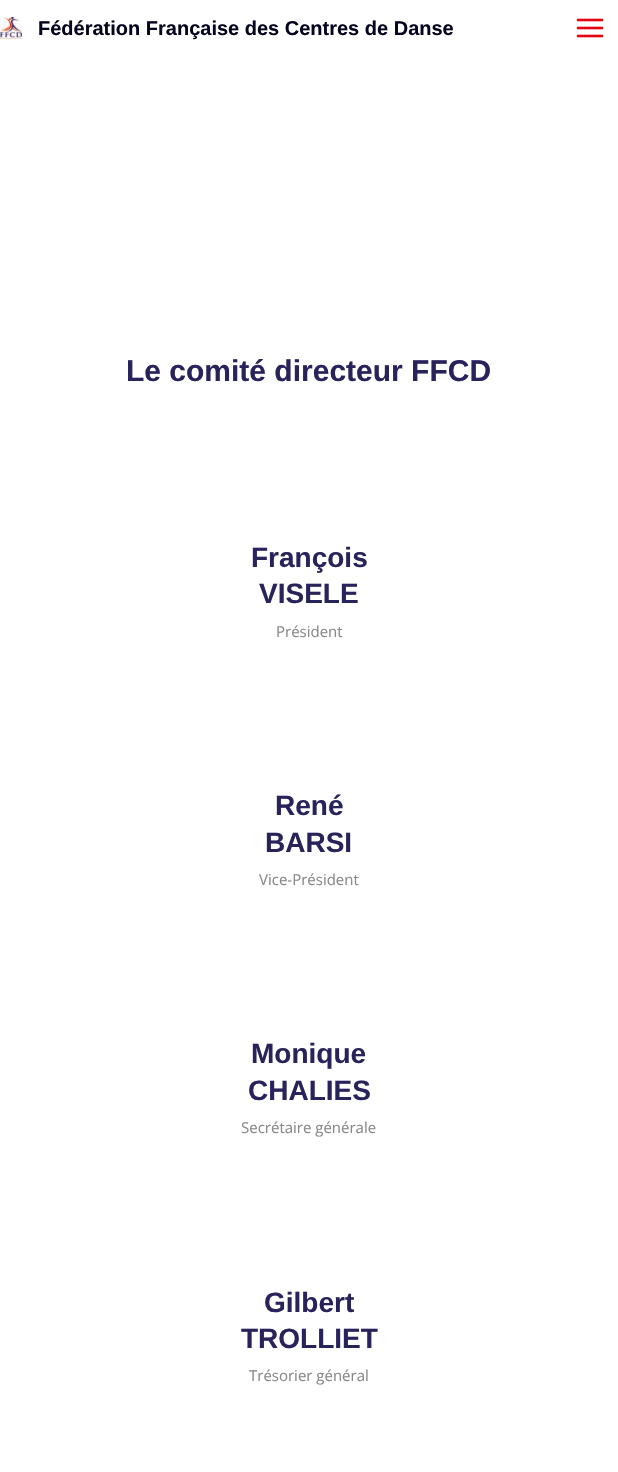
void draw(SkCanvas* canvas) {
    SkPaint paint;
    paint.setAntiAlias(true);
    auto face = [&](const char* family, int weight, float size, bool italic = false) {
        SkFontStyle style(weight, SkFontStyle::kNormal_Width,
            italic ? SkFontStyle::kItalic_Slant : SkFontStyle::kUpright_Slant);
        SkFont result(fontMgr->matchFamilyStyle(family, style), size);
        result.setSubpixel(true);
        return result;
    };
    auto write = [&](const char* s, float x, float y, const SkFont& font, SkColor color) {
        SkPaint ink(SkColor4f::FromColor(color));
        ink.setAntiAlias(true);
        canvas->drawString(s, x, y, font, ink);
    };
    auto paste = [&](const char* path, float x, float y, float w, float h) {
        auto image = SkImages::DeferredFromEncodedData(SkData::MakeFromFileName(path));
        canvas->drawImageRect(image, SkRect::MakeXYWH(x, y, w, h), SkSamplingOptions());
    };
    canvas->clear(SK_ColorWHITE);
    paste("pic1.png", 0, 17, 22, 22);
    auto kFont1 = face("Liberation Sans", 700, 20);
    write("Fédération Française des Centres de Danse", 38, 35, kFont1, SkColorSetRGB(4, 4, 31));
    paste("pic2.png", 576, 18, 28, 20);
    auto kFont2 = face("Liberation Sans", 700, 30);
    write("Le comité directeur FFCD", 126, 381, kFont2, SkColorSetRGB(41, 35, 92));
    auto kFont3 = face("Liberation Sans", 700, 28);
    write("François", 251, 567, kFont3, SkColorSetRGB(41, 35, 92));
    write("VISELE", 259, 603, kFont3, SkColorSetRGB(41, 35, 92));
    auto kFont4 = face("Open Sans", 400, 15);
    write("Président", 276, 637, kFont4, SkColorSetRGB(136, 136, 136));
    write("René", 275, 815, kFont3, SkColorSetRGB(41, 35, 92));
    write("BARSI", 265, 852, kFont3, SkColorSetRGB(41, 35, 92));
    write("Vice-Président", 259, 885, kFont4, SkColorSetRGB(136, 136, 136));
    write("Monique", 251, 1063, kFont3, SkColorSetRGB(41, 35, 92));
    write("CHALIES", 248, 1100, kFont3, SkColorSetRGB(41, 35, 92));
    write("Secrétaire générale", 241, 1133, kFont4, SkColorSetRGB(136, 136, 136));
    write("Gilbert", 264, 1312, kFont3, SkColorSetRGB(41, 35, 92));
    write("TROLLIET", 241, 1348, kFont3, SkColorSetRGB(41, 35, 92));
    write("Trésorier général", 249, 1381, kFont4, SkColorSetRGB(136, 136, 136));
}
